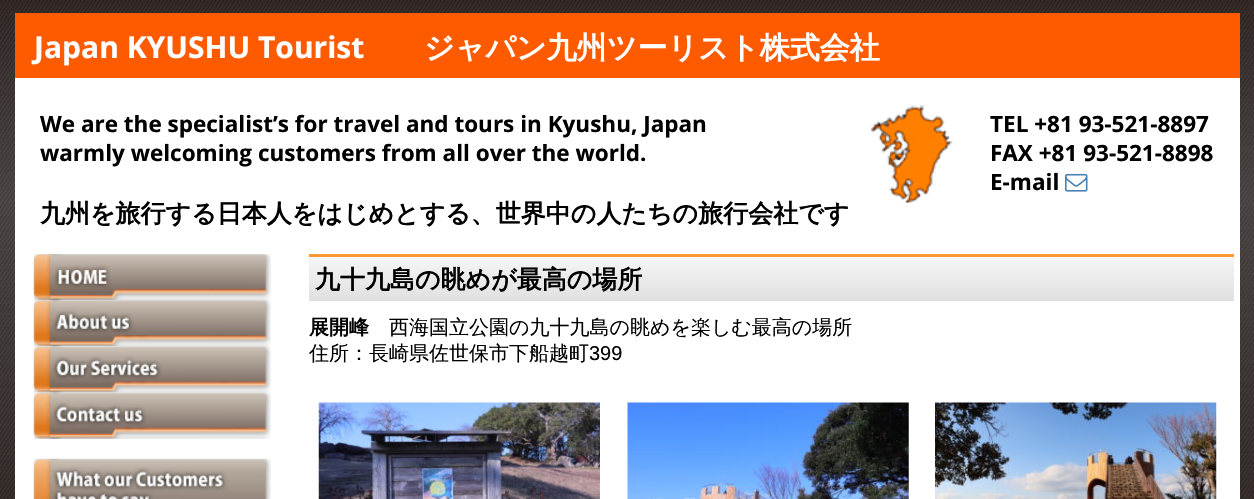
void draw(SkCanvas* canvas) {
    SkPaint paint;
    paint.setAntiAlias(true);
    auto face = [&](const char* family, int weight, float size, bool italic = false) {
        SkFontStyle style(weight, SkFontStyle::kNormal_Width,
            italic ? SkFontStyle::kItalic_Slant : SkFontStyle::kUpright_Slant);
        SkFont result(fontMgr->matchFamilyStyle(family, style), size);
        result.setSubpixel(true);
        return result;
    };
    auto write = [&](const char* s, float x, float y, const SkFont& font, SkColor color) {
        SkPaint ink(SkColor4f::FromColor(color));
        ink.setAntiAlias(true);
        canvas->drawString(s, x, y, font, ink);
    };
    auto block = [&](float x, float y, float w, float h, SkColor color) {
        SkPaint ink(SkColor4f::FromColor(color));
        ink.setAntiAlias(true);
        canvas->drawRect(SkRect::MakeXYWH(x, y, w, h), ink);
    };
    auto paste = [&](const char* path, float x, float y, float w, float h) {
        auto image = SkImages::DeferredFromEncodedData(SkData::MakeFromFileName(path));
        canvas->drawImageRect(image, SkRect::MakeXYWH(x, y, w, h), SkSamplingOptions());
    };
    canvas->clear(SK_ColorWHITE);
    paste("pic1.png", 0, 0, 1254, 499);
    block(15, 13, 1225, 65, SkColorSetRGB(254, 91, 0));
    auto kFont1 = face("Open Sans", 700, 30);
    write("Japan KYUSHU Tourist", 34, 58, kFont1, SK_ColorWHITE);
    auto kFont2 = face("WenQuanYi Zen Hei", 700, 30);
    write("ジャパン九州ツーリスト株式会社", 424, 58, kFont2, SK_ColorWHITE);
    block(15, 78, 1225, 25, SK_ColorWHITE);
    block(15, 103, 1225, 396, SK_ColorWHITE);
    auto kFont3 = face("Open Sans", 700, 22.5f);
    write("We are the specialist’s for travel and tours in Kyushu, Japan", 40, 132, kFont3, SK_ColorBLACK);
    write("warmly welcoming customers from all over the world.", 40, 161, kFont3, SK_ColorBLACK);
    auto kFont4 = face("WenQuanYi Zen Hei", 700, 25);
    write("九州を旅行する日本人をはじめとする、世界中の人たちの旅行会社です", 40, 222, kFont4, SK_ColorBLACK);
    paste("pic2.png", 871, 105, 82, 98);
    write("TEL +81 93-521-8897", 990, 132, kFont3, SK_ColorBLACK);
    write("FAX +81 93-521-8898", 990, 161, kFont3, SK_ColorBLACK);
    write("E-mail", 990, 190, kFont3, SK_ColorBLACK);
    paste("pic3.png", 1065, 173, 23, 19);
    paste("pic4.png", 33, 254, 239, 46);
    paste("pic5.png", 33, 300, 238, 47);
    paste("pic6.png", 33, 346, 238, 47);
    paste("pic7.png", 33, 392, 238, 47);
    paste("pic8.png", 33, 458, 238, 41);
    {
        const SkColor colors[] = {SkColorSetRGB(246, 246, 246), SkColorSetRGB(224, 224, 224)};
        const float stops[] = {0, 1};
        const SkPoint ends[] = {{771, 256}, {771, 301}};
        paint.setShader(SkGradientShader::MakeLinear(ends, colors, stops, 2, SkTileMode::kClamp));
        paint.setAlpha(255);
    }
    canvas->drawRect(SkRect::MakeXYWH(309, 257, 925, 44), paint);
    block(309, 254, 925, 3, SkColorSetRGB(255, 153, 51));
    write("九十九島の眺めが最高の場所", 315, 288, kFont4, SK_ColorBLACK);
    auto kFont5 = face("WenQuanYi Zen Hei", 700, 20);
    write("展開峰", 309, 334, kFont5, SK_ColorBLACK);
    auto kFont6 = face("WenQuanYi Zen Hei", 500, 20);
    write("西海国立公園の九十九島の眺めを楽しむ最高の場所", 389, 334, kFont6, SK_ColorBLACK);
    write("住所：長崎県佐世保市下船越町", 309, 360, kFont6, SK_ColorBLACK);
    auto kFont7 = face("Liberation Sans", 400, 20);
    write("399", 589, 360, kFont7, SK_ColorBLACK);
    paste("pic9.png", 318, 402, 282, 97);
    paste("pic10.png", 627, 402, 282, 97);
    paste("pic11.png", 935, 402, 282, 97);
}
